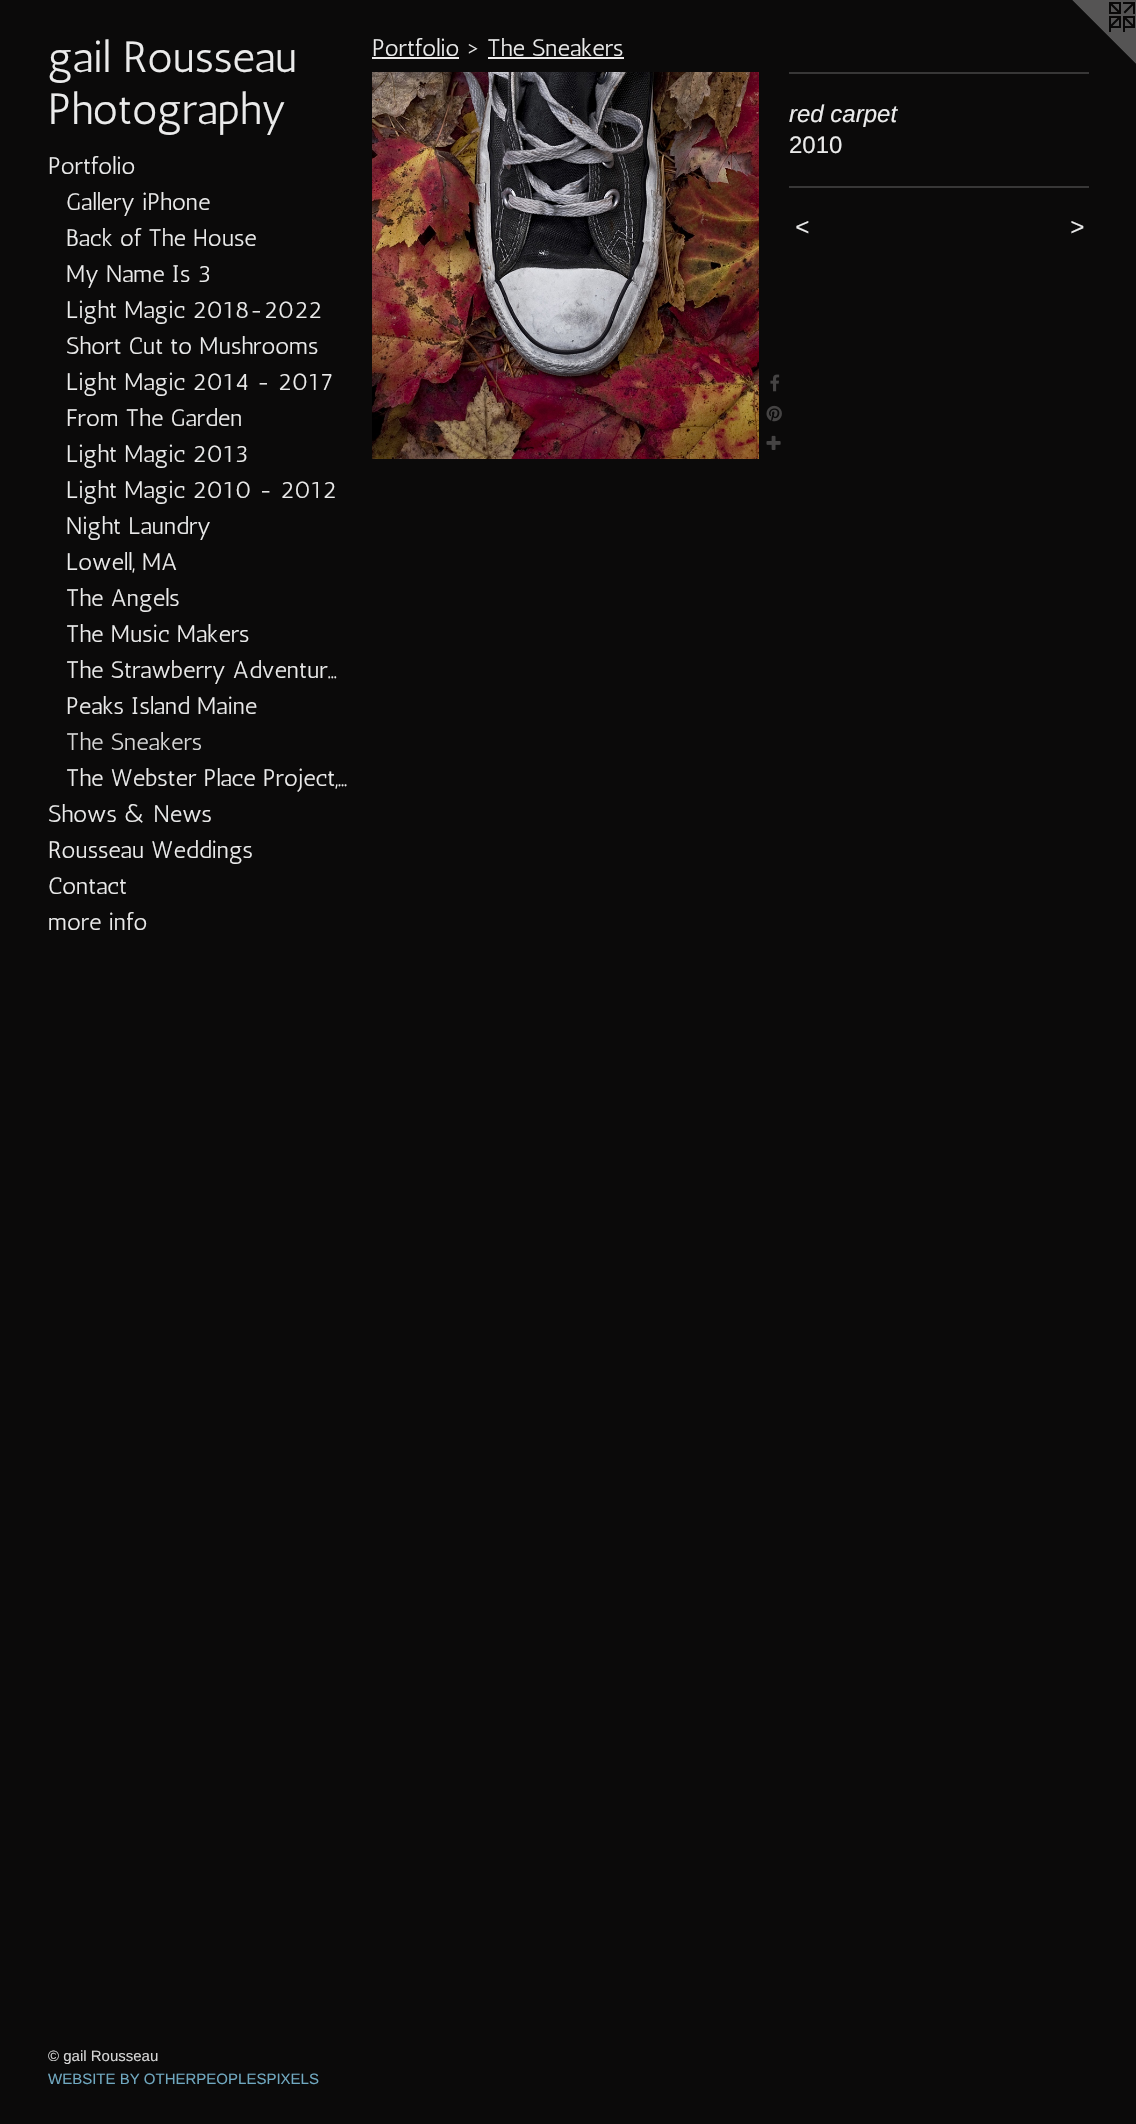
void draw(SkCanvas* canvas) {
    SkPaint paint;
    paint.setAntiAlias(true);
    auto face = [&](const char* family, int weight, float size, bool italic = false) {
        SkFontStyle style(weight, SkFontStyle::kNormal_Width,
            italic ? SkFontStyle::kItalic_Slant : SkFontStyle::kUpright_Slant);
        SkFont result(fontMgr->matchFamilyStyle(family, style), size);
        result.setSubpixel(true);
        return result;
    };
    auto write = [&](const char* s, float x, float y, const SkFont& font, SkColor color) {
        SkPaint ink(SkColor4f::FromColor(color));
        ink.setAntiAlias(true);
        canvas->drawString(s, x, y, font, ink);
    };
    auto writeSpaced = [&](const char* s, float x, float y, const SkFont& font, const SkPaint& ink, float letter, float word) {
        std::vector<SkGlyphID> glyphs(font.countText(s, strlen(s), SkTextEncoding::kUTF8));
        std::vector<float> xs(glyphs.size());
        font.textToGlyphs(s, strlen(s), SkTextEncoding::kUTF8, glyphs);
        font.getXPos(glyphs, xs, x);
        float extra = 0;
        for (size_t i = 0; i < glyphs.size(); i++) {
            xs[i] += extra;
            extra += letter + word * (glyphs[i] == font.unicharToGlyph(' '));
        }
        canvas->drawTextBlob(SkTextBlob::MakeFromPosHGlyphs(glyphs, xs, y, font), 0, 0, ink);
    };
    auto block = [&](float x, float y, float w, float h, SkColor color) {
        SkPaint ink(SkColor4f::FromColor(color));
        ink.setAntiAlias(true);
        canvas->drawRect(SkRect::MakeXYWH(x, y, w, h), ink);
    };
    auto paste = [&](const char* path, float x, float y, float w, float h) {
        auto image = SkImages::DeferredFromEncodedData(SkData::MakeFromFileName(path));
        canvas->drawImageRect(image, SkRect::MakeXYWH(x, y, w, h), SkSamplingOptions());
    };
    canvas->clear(SkColorSetRGB(11, 10, 10));
    auto kFont1 = face("Antic", 400, 43.5f);
    write("gail Rousseau", 48, 72, kFont1, SkColorSetRGB(235, 235, 235));
    write("Photography", 48, 124, kFont1, SkColorSetRGB(235, 235, 235));
    auto kFont2 = face("Antic", 400, 24);
    write("Portfolio", 48, 174, kFont2, SkColorSetRGB(235, 235, 235));
    write("Gallery iPhone", 66, 210, kFont2, SkColorSetRGB(235, 235, 235));
    write("Back of The House", 66, 246, kFont2, SkColorSetRGB(235, 235, 235));
    write("My Name Is 3", 66, 282, kFont2, SkColorSetRGB(235, 235, 235));
    write("Light Magic 2018-2022", 66, 318, kFont2, SkColorSetRGB(235, 235, 235));
    write("Short Cut to Mushrooms", 66, 354, kFont2, SkColorSetRGB(235, 235, 235));
    write("Light Magic 2014 - 2017", 66, 390, kFont2, SkColorSetRGB(235, 235, 235));
    write("From The Garden", 66, 426, kFont2, SkColorSetRGB(235, 235, 235));
    write("Light Magic 2013", 66, 462, kFont2, SkColorSetRGB(235, 235, 235));
    write("Light Magic 2010 - 2012", 66, 498, kFont2, SkColorSetRGB(235, 235, 235));
    write("Night Laundry", 66, 534, kFont2, SkColorSetRGB(235, 235, 235));
    write("Lowell, MA", 66, 570, kFont2, SkColorSetRGB(235, 235, 235));
    write("The Angels", 66, 606, kFont2, SkColorSetRGB(235, 235, 235));
    write("The Music Makers", 66, 642, kFont2, SkColorSetRGB(235, 235, 235));
    write("The Strawberry Adventur…", 66, 678, kFont2, SkColorSetRGB(235, 235, 235));
    write("Peaks Island Maine", 66, 714, kFont2, SkColorSetRGB(235, 235, 235));
    write("The Sneakers", 66, 750, kFont2, SkColorSetRGB(214, 214, 214));
    write("The Webster Place Project,…", 66, 786, kFont2, SkColorSetRGB(235, 235, 235));
    write("Shows & News", 48, 822, kFont2, SkColorSetRGB(235, 235, 235));
    write("Rousseau Weddings", 48, 858, kFont2, SkColorSetRGB(235, 235, 235));
    write("Contact", 48, 894, kFont2, SkColorSetRGB(235, 235, 235));
    write("more info", 48, 930, kFont2, SkColorSetRGB(235, 235, 235));
    auto kFont3 = face("Liberation Sans", 400, 15);
    write("© gail Rousseau", 48, 2061, kFont3, SkColorSetRGB(214, 214, 214));
    write("WEBSITE BY OTHERPEOPLESPIXELS", 48, 2084, kFont3, SkColorSetRGB(112, 168, 192));
    write("Portfolio > The Sneakers", 372, 56, kFont2, SkColorSetRGB(235, 235, 235));
    block(372, 57, 87, 2, SkColorSetRGB(238, 236, 236));
    block(488, 57, 136, 2, SkColorSetRGB(238, 236, 236));
    paste("pic1.png", 372, 72, 387, 387);
    paste("pic2.png", 770, 374, 10, 18);
    paste("pic3.png", 766, 405, 16, 17);
    paste("pic4.png", 766, 435, 15, 15);
    block(789, 72, 300, 2, SkColorSetRGB(56, 55, 55));
    auto kFont4 = face("Liberation Sans", 400, 24, true);
    write("red carpet", 789, 122, kFont4, SkColorSetRGB(235, 235, 235));
    auto kFont5 = face("Liberation Sans", 400, 24);
    write("2010", 789, 153, kFont5, SkColorSetRGB(235, 235, 235));
    block(789, 186, 300, 2, SkColorSetRGB(56, 55, 55));
    paint.setColor(SkColorSetRGB(235, 235, 235));
    writeSpaced("<", 795, 235, kFont4, paint, 2, 0);
    writeSpaced(">", 1070, 235, kFont4, paint, 2, 0);
    paste("pic5.png", 1072, 0, 64, 64);
}
